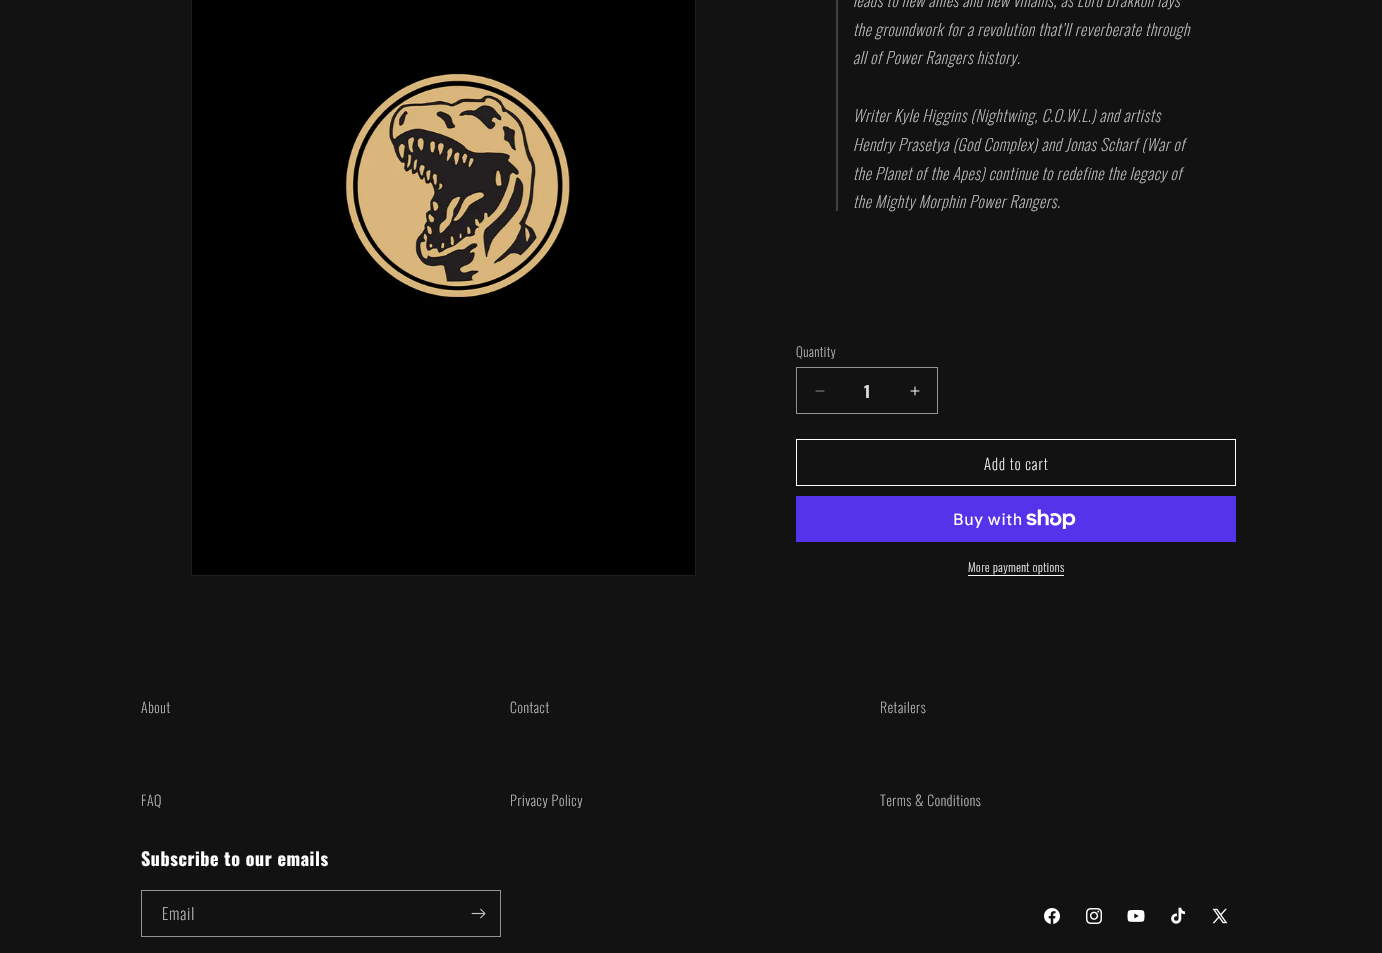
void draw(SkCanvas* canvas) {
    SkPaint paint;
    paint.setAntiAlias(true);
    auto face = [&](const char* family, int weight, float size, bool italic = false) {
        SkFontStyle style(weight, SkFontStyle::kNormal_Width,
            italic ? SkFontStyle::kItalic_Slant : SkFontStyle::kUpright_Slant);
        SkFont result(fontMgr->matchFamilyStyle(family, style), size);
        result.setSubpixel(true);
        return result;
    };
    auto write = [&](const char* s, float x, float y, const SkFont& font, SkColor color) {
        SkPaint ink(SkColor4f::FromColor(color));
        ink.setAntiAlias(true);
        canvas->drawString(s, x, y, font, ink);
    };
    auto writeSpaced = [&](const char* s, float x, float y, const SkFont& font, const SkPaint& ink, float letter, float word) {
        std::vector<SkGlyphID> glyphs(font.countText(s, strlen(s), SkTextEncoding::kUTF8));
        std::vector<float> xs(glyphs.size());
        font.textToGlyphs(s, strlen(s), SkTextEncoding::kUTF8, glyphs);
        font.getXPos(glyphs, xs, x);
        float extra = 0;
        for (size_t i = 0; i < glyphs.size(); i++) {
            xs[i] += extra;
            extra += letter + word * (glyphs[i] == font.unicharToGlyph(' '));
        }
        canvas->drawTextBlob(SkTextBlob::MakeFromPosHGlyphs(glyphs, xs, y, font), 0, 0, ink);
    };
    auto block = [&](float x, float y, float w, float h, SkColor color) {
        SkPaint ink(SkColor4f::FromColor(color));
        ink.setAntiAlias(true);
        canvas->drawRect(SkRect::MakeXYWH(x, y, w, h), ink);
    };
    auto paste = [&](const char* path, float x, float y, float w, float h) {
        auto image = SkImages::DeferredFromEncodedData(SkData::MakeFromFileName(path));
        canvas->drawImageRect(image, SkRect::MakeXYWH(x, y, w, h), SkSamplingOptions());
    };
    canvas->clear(SkColorSetRGB(18, 18, 18));
    paint.setStyle(SkPaint::kStroke_Style);
    paint.setStrokeWidth(1);
    paint.setColor(SkColorSetRGB(30, 30, 30));
    canvas->drawRect(SkRect::MakeXYWH(191.5f, -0.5f, 504, 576), paint);
    paste("pic1.png", 192, 0, 503, 575);
    block(836, 0, 2, 211, SkColorSetRGB(65, 65, 65));
    auto kFont1 = face("Oswald", 200, 16, true);
    paint.setStyle(SkPaint::kFill_Style);
    paint.setColor(SkColorSetRGB(196, 196, 196));
    writeSpaced("leads to new allies and new villains, as Lord Drakkon lays", 853, 7, kFont1, paint, 0.6f, 0);
    writeSpaced("the groundwork for a revolution that’ll reverberate through", 853, 36, kFont1, paint, 0.6f, 0);
    writeSpaced("all of Power Rangers history.", 853, 64, kFont1, paint, 0.6f, 0);
    writeSpaced("Writer Kyle Higgins (Nightwing, C.O.W.L.) and artists", 853, 122, kFont1, paint, 0.6f, 0);
    writeSpaced("Hendry Prasetya (God Complex) and Jonas Scharf (War of", 853, 151, kFont1, paint, 0.6f, 0);
    writeSpaced("the Planet of the Apes) continue to redefine the legacy of", 853, 180, kFont1, paint, 0.6f, 0);
    writeSpaced("the Mighty Morphin Power Rangers.", 853, 208, kFont1, paint, 0.6f, 0);
    auto kFont2 = face("Oswald", 200, 13);
    writeSpaced("Quantity", 796, 357, kFont2, paint, 0.5f, 0);
    paste("pic2.png", 815, 390, 10, 2);
    paste("pic3.png", 910, 386, 10, 10);
    paint.setStyle(SkPaint::kStroke_Style);
    paint.setColor(SkColorSetRGB(148, 148, 148));
    canvas->drawRect(SkRect::MakeXYWH(796.5f, 367.5f, 141, 46), paint);
    auto kFont3 = face("Oswald", 700, 16);
    write("1", 864, 398, kFont3, SkColorSetRGB(219, 219, 219));
    paint.setColor(SK_ColorWHITE);
    canvas->drawRect(SkRect::MakeXYWH(796.5f, 439.5f, 439, 46), paint);
    auto kFont4 = face("Oswald", 200, 15);
    paint.setStyle(SkPaint::kFill_Style);
    writeSpaced("Add to cart", 984, 470, kFont4, paint, 1, 0);
    block(796, 496, 440, 46, SkColorSetRGB(84, 51, 235));
    auto kFont5 = face("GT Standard", 400, 16);
    writeSpaced("Buy with", 953, 525, kFont5, paint, 0.6f, 0);
    paste("pic4.png", 1026, 509, 50, 20);
    auto kFont6 = face("Oswald", 200, 12);
    writeSpaced("More payment options", 968, 572, kFont6, paint, 0.5f, 0);
    block(968, 575, 96, 1, SK_ColorWHITE);
    auto kFont7 = face("Oswald", 200, 14);
    paint.setColor(SkColorSetRGB(196, 196, 196));
    writeSpaced("About", 141, 713, kFont7, paint, 0.6f, 0);
    writeSpaced("Contact", 510, 713, kFont7, paint, 0.6f, 0);
    writeSpaced("Retailers", 880, 713, kFont7, paint, 0.6f, 0);
    writeSpaced("FAQ", 141, 806, kFont7, paint, 0.6f, 0);
    writeSpaced("Privacy Policy", 510, 806, kFont7, paint, 0.6f, 0);
    writeSpaced("Terms & Conditions", 880, 806, kFont7, paint, 0.6f, 0);
    auto kFont8 = face("Oswald", 700, 18);
    paint.setColor(SK_ColorWHITE);
    writeSpaced("Subscribe to our emails", 141, 866, kFont8, paint, 0.6f, 0);
    paint.setStyle(SkPaint::kStroke_Style);
    paint.setColor(SkColorSetRGB(148, 148, 148));
    canvas->drawRect(SkRect::MakeXYWH(141.5f, 890.5f, 359, 46), paint);
    auto kFont9 = face("Oswald", 200, 16);
    paint.setStyle(SkPaint::kFill_Style);
    paint.setColor(SkColorSetRGB(196, 196, 196));
    writeSpaced("Email", 162, 920, kFont9, paint, 1, 0);
    paste("pic5.png", 471, 908, 15, 11);
    paste("pic6.png", 1044, 908, 16, 16);
    paste("pic7.png", 1086, 908, 16, 16);
    paste("pic8.png", 1127, 910, 18, 12);
    paste("pic9.png", 1171, 907, 15, 17);
    paste("pic10.png", 1212, 908, 16, 16);
}
